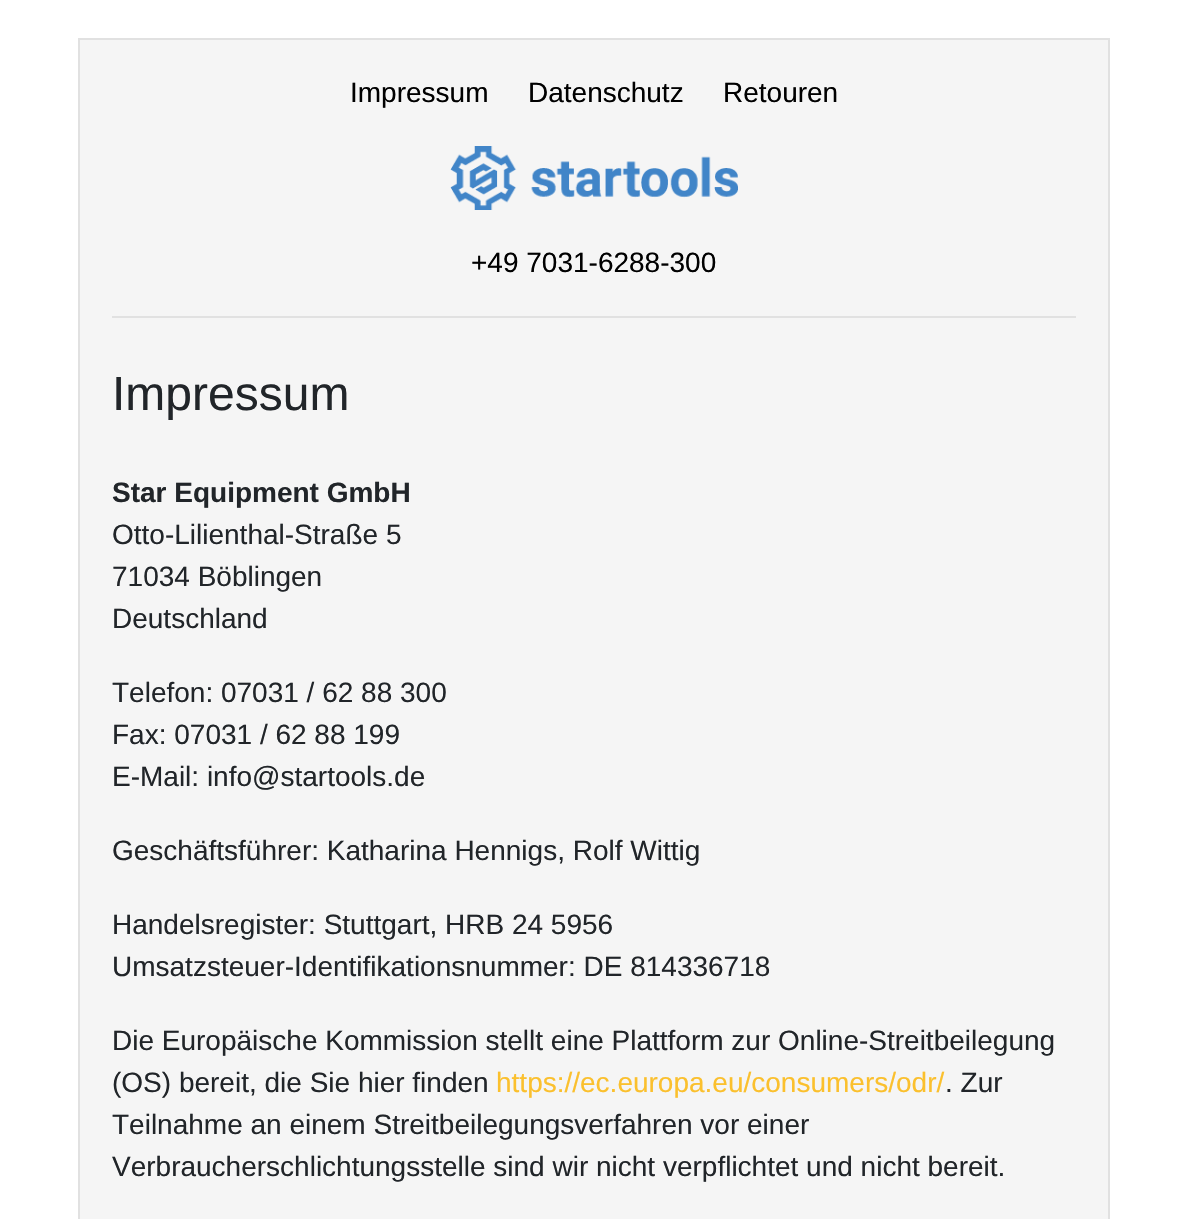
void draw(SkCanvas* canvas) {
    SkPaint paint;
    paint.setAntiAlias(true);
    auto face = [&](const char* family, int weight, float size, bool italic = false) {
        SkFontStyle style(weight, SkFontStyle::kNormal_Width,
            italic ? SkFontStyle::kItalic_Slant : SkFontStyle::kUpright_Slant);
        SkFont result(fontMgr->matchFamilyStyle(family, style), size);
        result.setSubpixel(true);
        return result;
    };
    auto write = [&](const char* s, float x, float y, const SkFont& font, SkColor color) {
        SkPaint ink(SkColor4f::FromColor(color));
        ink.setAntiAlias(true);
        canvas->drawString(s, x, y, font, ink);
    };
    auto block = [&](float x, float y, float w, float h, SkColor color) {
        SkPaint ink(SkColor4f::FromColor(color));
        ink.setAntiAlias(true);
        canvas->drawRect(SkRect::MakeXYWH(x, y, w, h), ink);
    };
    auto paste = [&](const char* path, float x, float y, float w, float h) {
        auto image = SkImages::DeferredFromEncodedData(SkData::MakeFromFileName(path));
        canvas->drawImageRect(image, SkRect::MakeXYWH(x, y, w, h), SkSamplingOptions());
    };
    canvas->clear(SK_ColorWHITE);
    paint.setColor(SkColorSetRGB(245, 245, 245));
    canvas->drawRect(SkRect::MakeXYWH(79, 39, 1030, 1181), paint);
    paint.setStyle(SkPaint::kStroke_Style);
    paint.setStrokeWidth(2);
    paint.setColor(SkColorSetRGB(225, 225, 225));
    canvas->drawRect(SkRect::MakeXYWH(79, 39, 1030, 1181), paint);
    block(112, 316, 964, 2, SkColorSetRGB(225, 225, 225));
    auto kFont1 = face("Liberation Sans", 400, 28);
    write("Impressum", 350, 102, kFont1, SK_ColorBLACK);
    write("Datenschutz", 528, 102, kFont1, SK_ColorBLACK);
    write("Retouren", 723, 102, kFont1, SK_ColorBLACK);
    paste("pic1.png", 450, 146, 288, 64);
    write("+49 7031-6288-300", 471, 272, kFont1, SK_ColorBLACK);
    auto kFont2 = face("Liberation Sans", 400, 48);
    write("Impressum", 112, 410, kFont2, SkColorSetRGB(33, 37, 41));
    auto kFont3 = face("Liberation Sans", 700, 28);
    write("Star Equipment GmbH", 112, 502, kFont3, SkColorSetRGB(33, 37, 41));
    write("Otto-Lilienthal-Straße 5", 112, 544, kFont1, SkColorSetRGB(33, 37, 41));
    write("71034 Böblingen", 112, 586, kFont1, SkColorSetRGB(33, 37, 41));
    write("Deutschland", 112, 628, kFont1, SkColorSetRGB(33, 37, 41));
    write("Telefon: 07031 / 62 88 300", 112, 702, kFont1, SkColorSetRGB(33, 37, 41));
    write("Fax: 07031 / 62 88 199", 112, 744, kFont1, SkColorSetRGB(33, 37, 41));
    write("E-Mail: info@startools.de", 112, 786, kFont1, SkColorSetRGB(33, 37, 41));
    write("Geschäftsführer: Katharina Hennigs, Rolf Wittig", 112, 860, kFont1, SkColorSetRGB(33, 37, 41));
    write("Handelsregister: Stuttgart, HRB 24 5956", 112, 934, kFont1, SkColorSetRGB(33, 37, 41));
    write("Umsatzsteuer-Identifikationsnummer: DE 814336718", 112, 976, kFont1, SkColorSetRGB(33, 37, 41));
    write("Die Europäische Kommission stellt eine Plattform zur Online-Streitbeilegung", 112, 1050, kFont1, SkColorSetRGB(33, 37, 41));
    write("(OS) bereit, die Sie hier finden", 112, 1092, kFont1, SkColorSetRGB(33, 37, 41));
    write("https://ec.europa.eu/consumers/odr/", 496, 1092, kFont1, SkColorSetRGB(251, 192, 45));
    write(". Zur", 945, 1092, kFont1, SkColorSetRGB(33, 37, 41));
    write("Teilnahme an einem Streitbeilegungsverfahren vor einer", 112, 1134, kFont1, SkColorSetRGB(33, 37, 41));
    write("Verbraucherschlichtungsstelle sind wir nicht verpflichtet und nicht bereit.", 112, 1176, kFont1, SkColorSetRGB(33, 37, 41));
}
